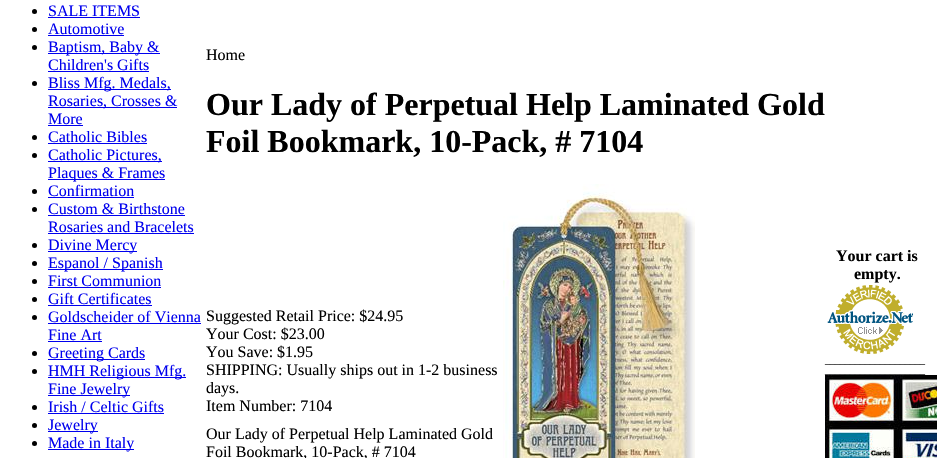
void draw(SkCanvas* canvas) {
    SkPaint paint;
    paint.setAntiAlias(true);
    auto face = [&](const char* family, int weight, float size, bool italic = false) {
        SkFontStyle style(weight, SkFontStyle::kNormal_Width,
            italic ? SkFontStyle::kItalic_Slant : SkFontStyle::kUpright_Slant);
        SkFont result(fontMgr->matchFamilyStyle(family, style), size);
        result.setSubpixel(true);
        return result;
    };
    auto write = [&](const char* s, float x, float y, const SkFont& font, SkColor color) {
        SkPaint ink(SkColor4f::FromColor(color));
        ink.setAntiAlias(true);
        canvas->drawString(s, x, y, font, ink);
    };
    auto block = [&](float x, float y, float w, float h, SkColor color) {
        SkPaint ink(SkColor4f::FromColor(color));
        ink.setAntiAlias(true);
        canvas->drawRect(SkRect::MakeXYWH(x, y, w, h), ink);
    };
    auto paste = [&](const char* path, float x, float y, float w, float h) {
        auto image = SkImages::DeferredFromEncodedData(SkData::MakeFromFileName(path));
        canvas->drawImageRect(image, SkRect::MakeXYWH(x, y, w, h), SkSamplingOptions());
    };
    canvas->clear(SK_ColorWHITE);
    paint.setColor(SK_ColorBLACK);
    canvas->drawCircle(34.5f, 11.5f, 2.5f, paint);
    auto kFont1 = face("Liberation Serif", 400, 16);
    write("SALE ITEMS", 48, 16, kFont1, SkColorSetRGB(0, 0, 238));
    block(48, 17, 92, 1, SkColorSetRGB(0, 0, 238));
    canvas->drawCircle(34.5f, 29.5f, 2.5f, paint);
    write("Automotive", 48, 34, kFont1, SkColorSetRGB(0, 0, 238));
    block(48, 35, 76, 1, SkColorSetRGB(0, 0, 238));
    canvas->drawCircle(34.5f, 47.5f, 2.5f, paint);
    block(48, 53, 112, 1, SkColorSetRGB(0, 0, 238));
    write("Baptism, Baby &", 48, 52, kFont1, SkColorSetRGB(0, 0, 238));
    write("Children's Gifts", 48, 70, kFont1, SkColorSetRGB(0, 0, 238));
    block(48, 71, 101, 1, SkColorSetRGB(0, 0, 238));
    canvas->drawCircle(34.5f, 83.5f, 2.5f, paint);
    block(48, 89, 123, 1, SkColorSetRGB(0, 0, 238));
    write("Bliss Mfg. Medals,", 48, 88, kFont1, SkColorSetRGB(0, 0, 238));
    block(48, 107, 129, 1, SkColorSetRGB(0, 0, 238));
    write("Rosaries, Crosses &", 48, 106, kFont1, SkColorSetRGB(0, 0, 238));
    write("More", 48, 124, kFont1, SkColorSetRGB(0, 0, 238));
    block(48, 125, 35, 1, SkColorSetRGB(0, 0, 238));
    canvas->drawCircle(34.5f, 137.5f, 2.5f, paint);
    write("Catholic Bibles", 48, 142, kFont1, SkColorSetRGB(0, 0, 238));
    block(48, 143, 99, 1, SkColorSetRGB(0, 0, 238));
    canvas->drawCircle(34.5f, 155.5f, 2.5f, paint);
    block(48, 161, 114, 1, SkColorSetRGB(0, 0, 238));
    write("Catholic Pictures,", 48, 160, kFont1, SkColorSetRGB(0, 0, 238));
    block(48, 179, 117, 1, SkColorSetRGB(0, 0, 238));
    write("Plaques & Frames", 48, 178, kFont1, SkColorSetRGB(0, 0, 238));
    canvas->drawCircle(34.5f, 191.5f, 2.5f, paint);
    write("Confirmation", 48, 196, kFont1, SkColorSetRGB(0, 0, 238));
    block(48, 197, 86, 1, SkColorSetRGB(0, 0, 238));
    canvas->drawCircle(34.5f, 209.5f, 2.5f, paint);
    write("Custom & Birthstone", 48, 214, kFont1, SkColorSetRGB(0, 0, 238));
    block(48, 215, 137, 1, SkColorSetRGB(0, 0, 238));
    write("Rosaries and Bracelets", 48, 232, kFont1, SkColorSetRGB(0, 0, 238));
    block(48, 233, 146, 1, SkColorSetRGB(0, 0, 238));
    canvas->drawCircle(34.5f, 245.5f, 2.5f, paint);
    block(48, 251, 89, 1, SkColorSetRGB(0, 0, 238));
    write("Divine Mercy", 48, 250, kFont1, SkColorSetRGB(0, 0, 238));
    canvas->drawCircle(34.5f, 263.5f, 2.5f, paint);
    block(48, 269, 115, 1, SkColorSetRGB(0, 0, 238));
    write("Espanol / Spanish", 48, 268, kFont1, SkColorSetRGB(0, 0, 238));
    canvas->drawCircle(34.5f, 281.5f, 2.5f, paint);
    write("First Communion", 48, 286, kFont1, SkColorSetRGB(0, 0, 238));
    block(48, 287, 113, 1, SkColorSetRGB(0, 0, 238));
    canvas->drawCircle(34.5f, 299.5f, 2.5f, paint);
    write("Gift Certificates", 48, 304, kFont1, SkColorSetRGB(0, 0, 238));
    block(48, 305, 104, 1, SkColorSetRGB(0, 0, 238));
    canvas->drawCircle(34.5f, 317.5f, 2.5f, paint);
    write("Goldscheider of Vienna", 48, 322, kFont1, SkColorSetRGB(0, 0, 238));
    block(48, 323, 153, 1, SkColorSetRGB(0, 0, 238));
    write("Fine Art", 48, 340, kFont1, SkColorSetRGB(0, 0, 238));
    block(48, 341, 54, 1, SkColorSetRGB(0, 0, 238));
    canvas->drawCircle(34.5f, 353.5f, 2.5f, paint);
    block(48, 359, 97, 1, SkColorSetRGB(0, 0, 238));
    write("Greeting Cards", 48, 358, kFont1, SkColorSetRGB(0, 0, 238));
    canvas->drawCircle(34.5f, 371.5f, 2.5f, paint);
    block(48, 377, 138, 1, SkColorSetRGB(0, 0, 238));
    write("HMH Religious Mfg.", 48, 376, kFont1, SkColorSetRGB(0, 0, 238));
    block(48, 395, 82, 1, SkColorSetRGB(0, 0, 238));
    write("Fine Jewelry", 48, 394, kFont1, SkColorSetRGB(0, 0, 238));
    canvas->drawCircle(34.5f, 407.5f, 2.5f, paint);
    write("Irish / Celtic Gifts", 48, 412, kFont1, SkColorSetRGB(0, 0, 238));
    block(48, 413, 116, 1, SkColorSetRGB(0, 0, 238));
    canvas->drawCircle(34.5f, 425.5f, 2.5f, paint);
    block(48, 431, 50, 1, SkColorSetRGB(0, 0, 238));
    write("Jewelry", 48, 430, kFont1, SkColorSetRGB(0, 0, 238));
    canvas->drawCircle(34.5f, 443.5f, 2.5f, paint);
    block(48, 449, 86, 1, SkColorSetRGB(0, 0, 238));
    write("Made in Italy", 48, 448, kFont1, SkColorSetRGB(0, 0, 238));
    write("Home", 206, 60, kFont1, SK_ColorBLACK);
    auto kFont2 = face("Liberation Serif", 700, 32);
    write("Our Lady of Perpetual Help Laminated Gold", 206, 115, kFont2, SK_ColorBLACK);
    write("Foil Bookmark, 10-Pack, # 7104", 206, 152, kFont2, SK_ColorBLACK);
    write("Suggested Retail Price: $24.95", 206, 321, kFont1, SK_ColorBLACK);
    write("Your Cost: $23.00", 206, 339, kFont1, SK_ColorBLACK);
    write("You Save: $1.95", 206, 357, kFont1, SK_ColorBLACK);
    write("SHIPPING: Usually ships out in 1-2 business", 206, 375, kFont1, SK_ColorBLACK);
    write("days.", 206, 393, kFont1, SK_ColorBLACK);
    write("Item Number: 7104", 206, 411, kFont1, SK_ColorBLACK);
    write("Our Lady of Perpetual Help Laminated Gold", 206, 439, kFont1, SK_ColorBLACK);
    write("Foil Bookmark, 10-Pack, # 7104", 206, 457, kFont1, SK_ColorBLACK);
    paste("pic1.png", 503, 184, 192, 274);
    auto kFont3 = face("Liberation Serif", 700, 16);
    write("Your cart is", 836, 261, kFont3, SK_ColorBLACK);
    write("empty.", 854, 279, kFont3, SK_ColorBLACK);
    paste("pic2.png", 827, 285, 86, 69);
    auto kFont4 = face("Liberation Sans", 400, 9);
    write("____________________", 825, 363, kFont4, SK_ColorBLACK);
    write("____________________", 825, 373, kFont4, SK_ColorBLACK);
    paste("pic3.png", 825, 375, 112, 83);
}
